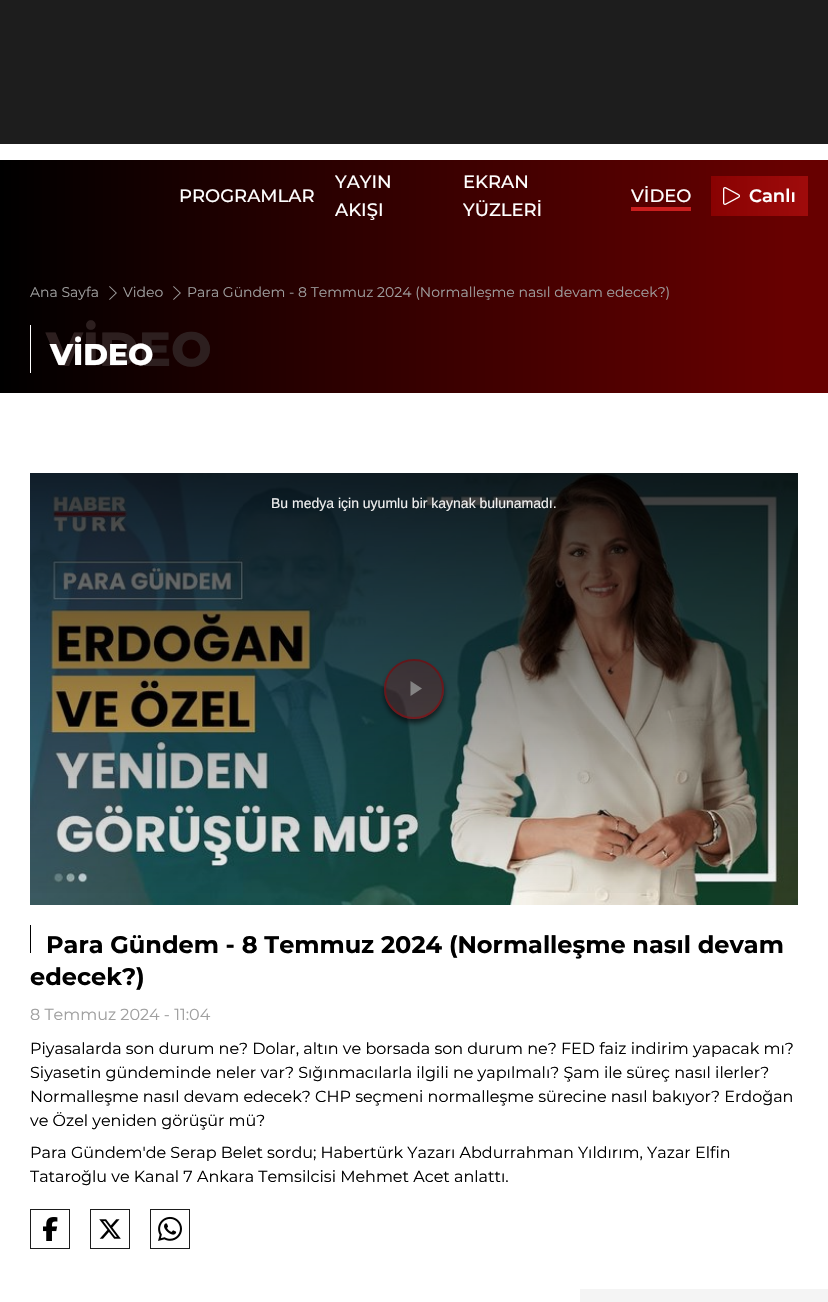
void draw(SkCanvas* canvas) {
    SkPaint paint;
    paint.setAntiAlias(true);
    auto face = [&](const char* family, int weight, float size, bool italic = false) {
        SkFontStyle style(weight, SkFontStyle::kNormal_Width,
            italic ? SkFontStyle::kItalic_Slant : SkFontStyle::kUpright_Slant);
        SkFont result(fontMgr->matchFamilyStyle(family, style), size);
        result.setSubpixel(true);
        return result;
    };
    auto write = [&](const char* s, float x, float y, const SkFont& font, SkColor color) {
        SkPaint ink(SkColor4f::FromColor(color));
        ink.setAntiAlias(true);
        canvas->drawString(s, x, y, font, ink);
    };
    auto block = [&](float x, float y, float w, float h, SkColor color) {
        SkPaint ink(SkColor4f::FromColor(color));
        ink.setAntiAlias(true);
        canvas->drawRect(SkRect::MakeXYWH(x, y, w, h), ink);
    };
    auto paste = [&](const char* path, float x, float y, float w, float h) {
        auto image = SkImages::DeferredFromEncodedData(SkData::MakeFromFileName(path));
        canvas->drawImageRect(image, SkRect::MakeXYWH(x, y, w, h), SkSamplingOptions());
    };
    canvas->clear(SK_ColorWHITE);
    block(0, 0, 828, 144, SkColorSetRGB(29, 29, 29));
    {
        const SkColor colors[] = {SkColorSetRGB(103, 0, 0), SK_ColorBLACK};
        const float stops[] = {0.05f, 1};
        const SkPoint ends[] = {{828, 277}, {0, 277}};
        paint.setShader(SkGradientShader::MakeLinear(ends, colors, stops, 2, SkTileMode::kClamp));
        paint.setAlpha(255);
    }
    canvas->drawRect(SkRect::MakeXYWH(0, 160, 828, 233), paint);
    auto kFont1 = face("Montserrat", 500, 18);
    write("PROGRAMLAR", 179, 202, kFont1, SK_ColorWHITE);
    write("YAYIN", 335, 188, kFont1, SK_ColorWHITE);
    write("AKIŞI", 335, 216, kFont1, SK_ColorWHITE);
    write("EKRAN", 463, 188, kFont1, SK_ColorWHITE);
    write("YÜZLERİ", 463, 216, kFont1, SK_ColorWHITE);
    write("VİDEO", 631, 202, kFont1, SK_ColorWHITE);
    block(631, 207, 60, 4, SkColorSetRGB(203, 30, 30));
    {
        const SkColor colors[] = {SkColorSetRGB(137, 2, 2), SkColorSetRGB(203, 30, 30)};
        const float stops[] = {0, 1};
        const SkPoint ends[] = {{711, 196}, {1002, 196}};
        paint.setShader(SkGradientShader::MakeLinear(ends, colors, stops, 2, SkTileMode::kClamp));
        paint.setAlpha(255);
    }
    canvas->drawRect(SkRect::MakeXYWH(711, 176, 97, 40), paint);
    paste("pic1.png", 723, 187, 17, 18);
    auto kFont2 = face("Montserrat", 600, 18);
    write("Canlı", 749, 202, kFont2, SK_ColorWHITE);
    auto kFont3 = face("Montserrat", 400, 14);
    write("Ana Sayfa", 30, 297, kFont3, SkColorSetRGB(159, 159, 159));
    paste("pic2.png", 109, 286, 8, 14);
    write("Video", 123, 297, kFont3, SkColorSetRGB(159, 159, 159));
    paste("pic3.png", 173, 286, 8, 14);
    write("Para Gündem - 8 Temmuz 2024 (Normalleşme nasıl devam edecek?)", 187, 297, kFont3, SkColorSetRGB(159, 159, 159));
    block(30, 325, 1, 48, SK_ColorWHITE);
    auto kFont4 = face("Montserrat", 800, 48);
    write("VİDEO", 46, 366, kFont4, SkColorSetRGB(45, 31, 31));
    auto kFont5 = face("Montserrat", 800, 30);
    write("VİDEO", 50, 365, kFont5, SK_ColorWHITE);
    paste("pic4.png", 30, 473, 768, 432);
    canvas->save();
    canvas->clipPath(SkPathBuilder(SkPathFillType::kEvenOdd).moveTo(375, 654).lineTo(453, 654).lineTo(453, 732).lineTo(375, 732).close().moveTo(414, 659).cubicTo(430.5f, 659, 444, 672.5f, 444, 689).cubicTo(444, 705.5f, 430.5f, 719, 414, 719).cubicTo(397.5f, 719, 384, 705.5f, 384, 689).cubicTo(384, 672.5f, 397.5f, 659, 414, 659).close().detach(), true);
    paint.setShader(nullptr);
    paint.setColor(SkColorSetARGB(153, 0, 0, 0));
    paint.setMaskFilter(SkMaskFilter::MakeBlur(kNormal_SkBlurStyle, 2.5f));
    canvas->drawRoundRect(SkRect::MakeXYWH(384, 663, 60, 60), 30, 30, paint);
    paint.setMaskFilter(nullptr);
    canvas->restore();
    paint.setColor(SkColorSetARGB(77, 207, 22, 28));
    canvas->drawCircle(414, 689, 30, paint);
    paint.setStyle(SkPaint::kStroke_Style);
    paint.setStrokeWidth(2);
    paint.setColor(SkColorSetARGB(179, 207, 22, 28));
    canvas->drawCircle(414, 689, 29, paint);
    paint.setStyle(SkPaint::kFill_Style);
    paint.setColor(SkColorSetRGB(220, 218, 219));
    canvas->drawPath(SkPathBuilder().moveTo(410.5f, 681).lineTo(410.5f, 696).lineTo(422, 688.5f).close().detach(), paint);
    {
        const SkColor colors[] = {SkColorSetARGB(204, 0, 0, 0), SkColorSetARGB(0, 0, 0, 0)};
        const float stops[] = {0, 1};
        const SkPoint ends[] = {{414, 473}, {414, 905}};
        paint.setShader(SkGradientShader::MakeLinear(ends, colors, stops, 2, SkTileMode::kClamp));
        paint.setAlpha(255);
    }
    canvas->drawRect(SkRect::MakeXYWH(30, 473, 768, 420), paint);
    auto kFont6 = face("Liberation Sans", 400, 14);
    write("Bu medya için uyumlu bir kaynak bulunamadı.", 271, 508, kFont6, SkColorSetRGB(241, 241, 241));
    block(30, 925, 1, 28, SK_ColorBLACK);
    auto kFont7 = face("Montserrat", 700, 24);
    write("Para Gündem - 8 Temmuz 2024 (Normalleşme nasıl devam", 46, 953, kFont7, SK_ColorBLACK);
    write("edecek?)", 30, 985, kFont7, SK_ColorBLACK);
    auto kFont8 = face("Montserrat", 400, 16);
    write("8 Temmuz 2024 - 11:04", 30, 1020, kFont8, SkColorSetRGB(159, 159, 159));
    write("Piyasalarda son durum ne? Dolar, altın ve borsada son durum ne? FED faiz indirim yapacak mı?", 30, 1054, kFont8, SK_ColorBLACK);
    write("Siyasetin gündeminde neler var? Sığınmacılarla ilgili ne yapılmalı? Şam ile süreç nasıl ilerler?", 30, 1078, kFont8, SK_ColorBLACK);
    write("Normalleşme nasıl devam edecek? CHP seçmeni normalleşme sürecine nasıl bakıyor? Erdoğan", 30, 1102, kFont8, SK_ColorBLACK);
    write("ve Özel yeniden görüşür mü?", 30, 1126, kFont8, SK_ColorBLACK);
    write("Para Gündem'de Serap Belet sordu; Habertürk Yazarı Abdurrahman Yıldırım, Yazar Elfin", 30, 1158, kFont8, SK_ColorBLACK);
    write("Tataroğlu ve Kanal 7 Ankara Temsilcisi Mehmet Acet anlattı.", 30, 1182, kFont8, SK_ColorBLACK);
    paint.setStyle(SkPaint::kStroke_Style);
    paint.setStrokeWidth(1);
    paint.setShader(nullptr);
    paint.setColor(SkColorSetRGB(29, 29, 29));
    canvas->drawRect(SkRect::MakeXYWH(30.5f, 1209.5f, 39, 39), paint);
    paste("pic5.png", 43, 1217, 15, 24);
    canvas->drawRect(SkRect::MakeXYWH(90.5f, 1209.5f, 39, 39), paint);
    paste("pic6.png", 99, 1219, 22, 20);
    canvas->drawRect(SkRect::MakeXYWH(150.5f, 1209.5f, 39, 39), paint);
    paste("pic7.png", 158, 1216, 24, 25);
    block(580, 1289, 248, 13, SkColorSetRGB(244, 244, 244));
}
